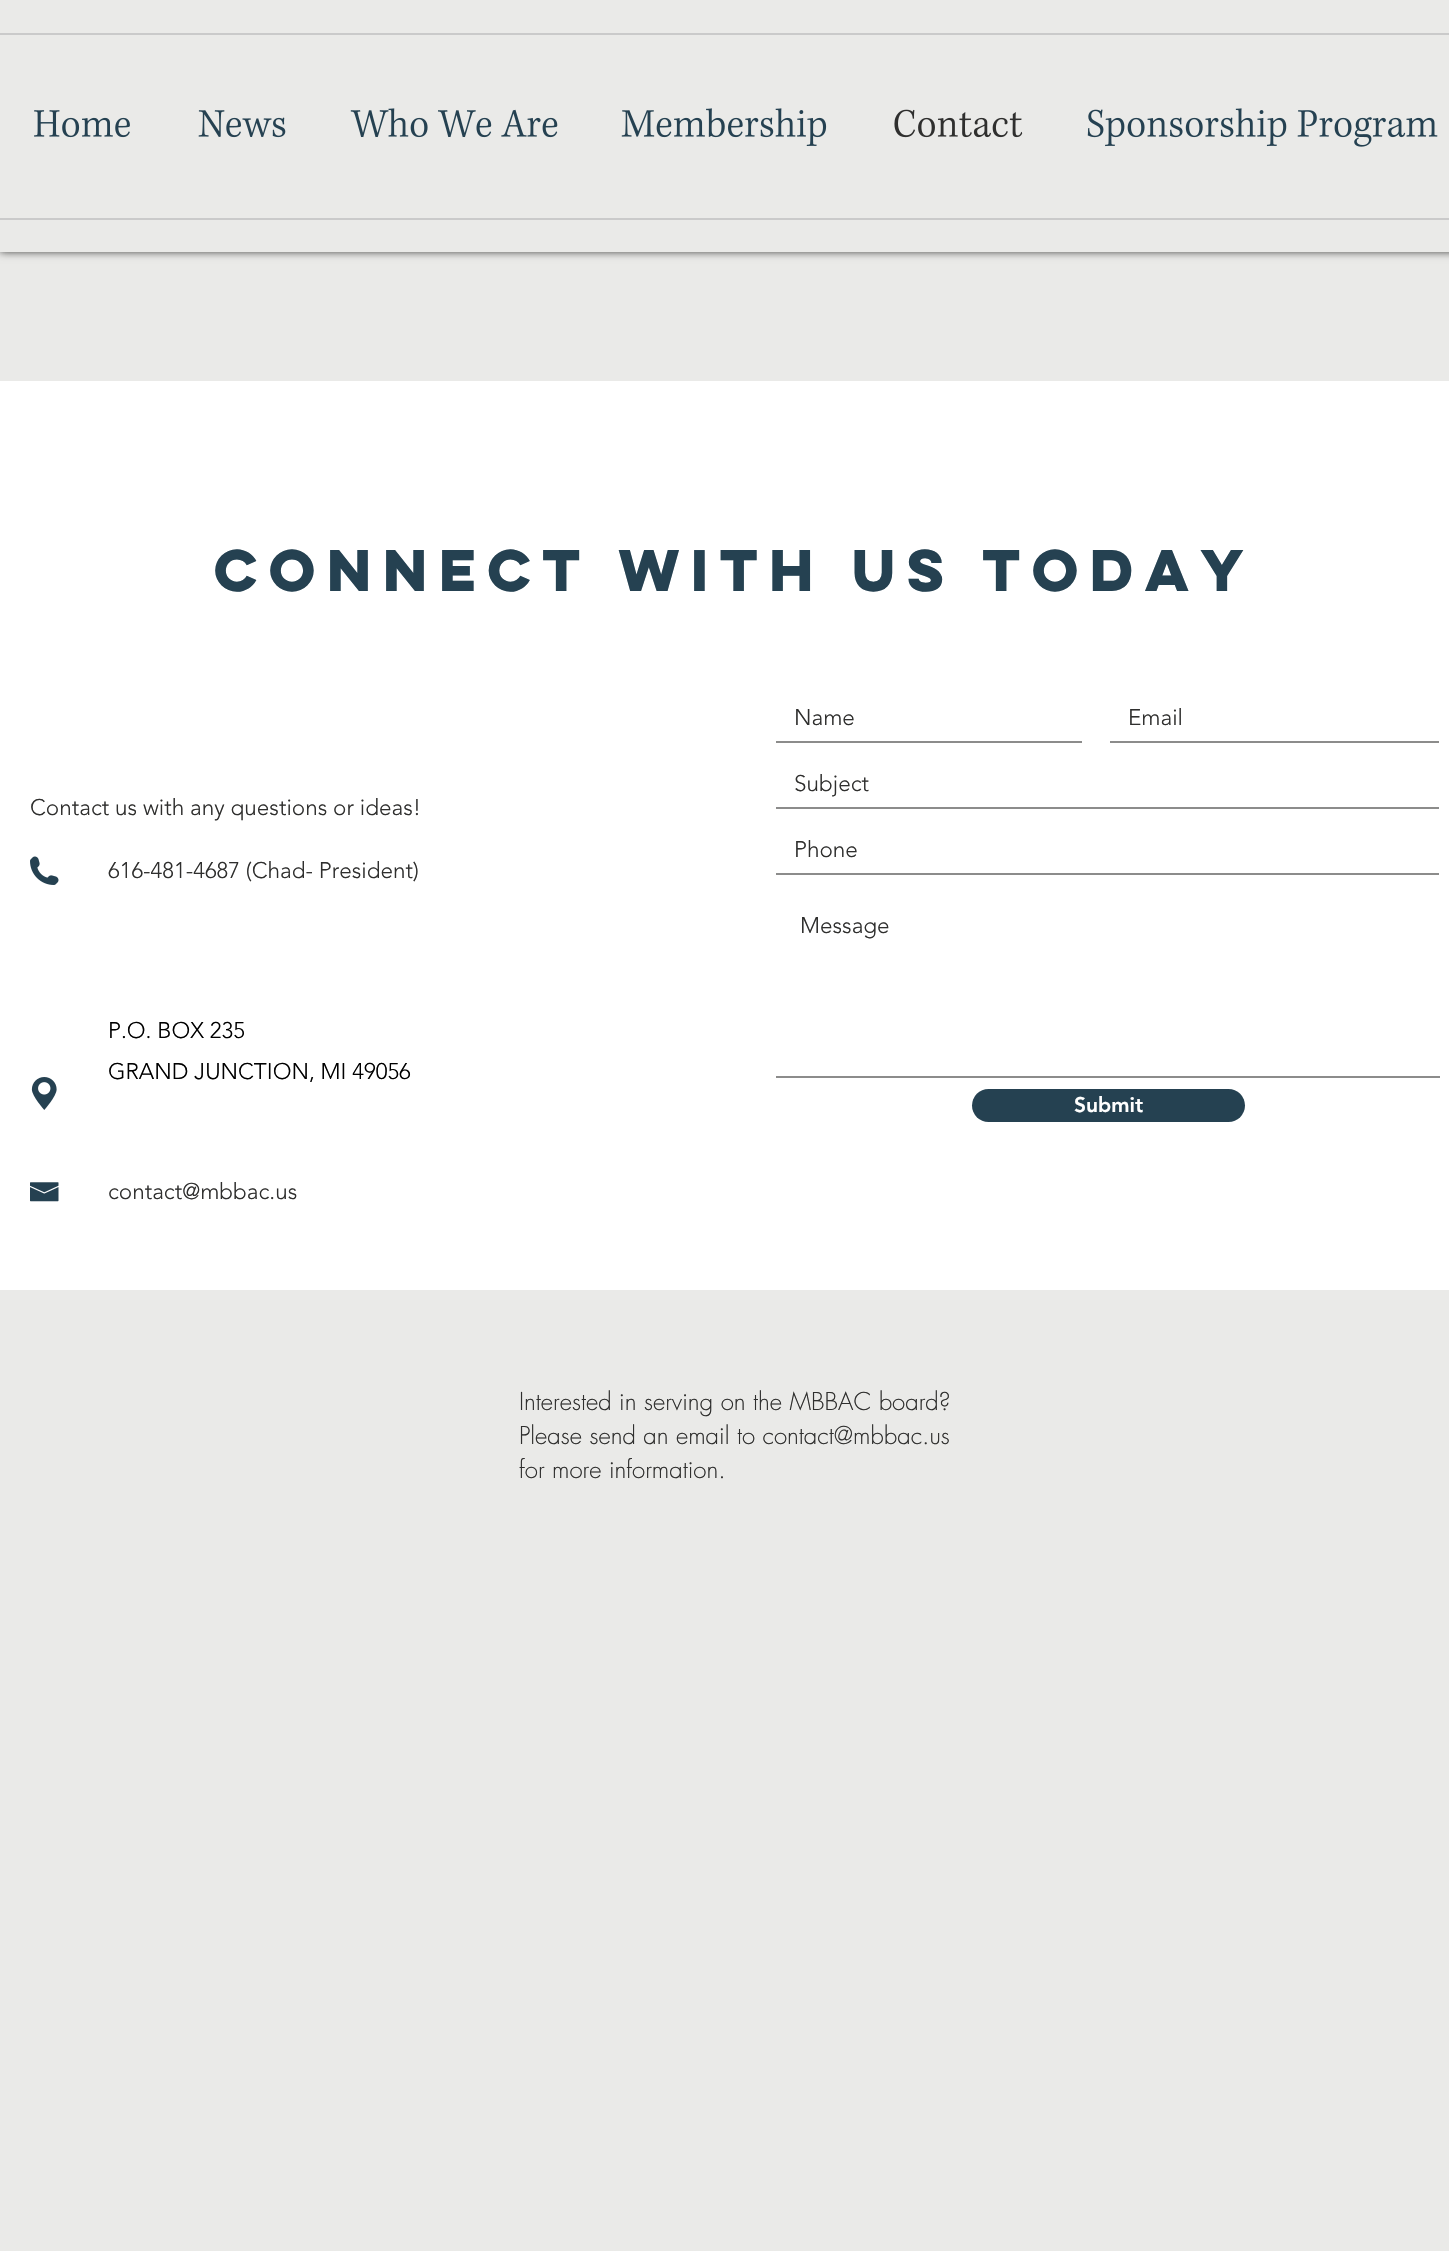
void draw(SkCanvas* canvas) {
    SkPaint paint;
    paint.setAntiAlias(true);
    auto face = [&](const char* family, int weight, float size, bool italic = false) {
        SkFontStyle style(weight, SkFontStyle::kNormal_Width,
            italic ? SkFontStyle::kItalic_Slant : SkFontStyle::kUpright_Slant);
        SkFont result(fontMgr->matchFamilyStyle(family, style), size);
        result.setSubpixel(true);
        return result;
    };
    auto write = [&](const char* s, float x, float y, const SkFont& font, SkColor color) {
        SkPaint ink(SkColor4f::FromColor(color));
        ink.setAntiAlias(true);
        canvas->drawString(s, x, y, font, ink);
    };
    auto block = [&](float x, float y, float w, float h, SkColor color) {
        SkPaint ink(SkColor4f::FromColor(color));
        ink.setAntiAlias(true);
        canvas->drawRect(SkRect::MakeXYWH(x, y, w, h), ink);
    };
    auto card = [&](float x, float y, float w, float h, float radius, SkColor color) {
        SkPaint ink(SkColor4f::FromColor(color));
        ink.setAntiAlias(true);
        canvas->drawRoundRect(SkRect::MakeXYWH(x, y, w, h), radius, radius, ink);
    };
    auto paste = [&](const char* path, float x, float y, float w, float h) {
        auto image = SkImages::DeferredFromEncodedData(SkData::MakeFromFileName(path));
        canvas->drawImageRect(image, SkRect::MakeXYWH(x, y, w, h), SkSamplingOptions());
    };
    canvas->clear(SkColorSetRGB(234, 234, 232));
    paint.setColor(SkColorSetARGB(179, 0, 0, 0));
    paint.setMaskFilter(SkMaskFilter::MakeBlur(kNormal_SkBlurStyle, 4));
    canvas->drawRect(SkRect::MakeXYWH(0, 0, 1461, 252), paint);
    paint.setMaskFilter(nullptr);
    block(0, 0, 1449, 252, SkColorSetRGB(234, 234, 232));
    block(0, 33, 1449, 2, SkColorSetRGB(202, 202, 202));
    block(0, 218, 1449, 2, SkColorSetRGB(202, 202, 202));
    paste("pic1.png", 34, 110, 96, 28);
    paste("pic2.png", 198, 110, 88, 28);
    paste("pic3.png", 350, 108, 208, 30);
    paste("pic4.png", 621, 108, 206, 38);
    paste("pic5.png", 894, 109, 129, 29);
    paste("pic6.png", 1087, 108, 351, 39);
    block(0, 381, 1449, 909, SK_ColorWHITE);
    auto kFont1 = face("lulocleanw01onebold", 700, 52.5f);
    write("CONNECT WITH US TODAY", 214, 591, kFont1, SkColorSetRGB(37, 65, 81));
    auto kFont2 = face("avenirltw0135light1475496", 300, 22.5f);
    write("Contact us with any questions or ideas!", 30, 815, kFont2, SkColorSetRGB(47, 47, 46));
    block(776, 741, 306, 2, SkColorSetRGB(140, 140, 139));
    write("Name", 794, 725, kFont2, SkColorSetRGB(47, 47, 46));
    block(1110, 741, 329, 2, SkColorSetRGB(140, 140, 139));
    write("Email", 1128, 725, kFont2, SkColorSetRGB(47, 47, 46));
    block(776, 807, 663, 2, SkColorSetRGB(140, 140, 139));
    write("Subject", 794, 791, kFont2, SkColorSetRGB(47, 47, 46));
    block(776, 873, 663, 2, SkColorSetRGB(140, 140, 139));
    write("Phone", 794, 857, kFont2, SkColorSetRGB(47, 47, 46));
    block(776, 1076, 664, 2, SkColorSetRGB(140, 140, 139));
    write("Message", 800, 933, kFont2, SkColorSetRGB(47, 47, 46));
    card(972, 1089, 273, 33, 16.5f, SkColorSetRGB(37, 65, 81));
    auto kFont3 = face("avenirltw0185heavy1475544", 900, 21);
    write("Submit", 1074, 1112, kFont3, SK_ColorWHITE);
    paste("pic7.png", 30, 856, 29, 29);
    write("616-481-4687 (Chad- President)", 108, 878, kFont2, SkColorSetRGB(47, 47, 46));
    write("P.O. BOX 235", 108, 1038, kFont2, SK_ColorBLACK);
    write("GRAND JUNCTION, MI 49056", 108, 1079, kFont2, SK_ColorBLACK);
    paste("pic8.png", 31, 1077, 26, 33);
    paste("pic9.png", 30, 1182, 29, 20);
    write("contact@mbbac.us", 108, 1199, kFont2, SkColorSetRGB(47, 47, 46));
    auto kFont4 = face("futura", 300, 24);
    write("Interested in serving on the MBBAC board?", 519, 1410, kFont4, SkColorSetRGB(47, 47, 46));
    write("Please send an email to contact@mbbac.us", 519, 1444, kFont4, SkColorSetRGB(47, 47, 46));
    write("for more information.", 519, 1478, kFont4, SkColorSetRGB(47, 47, 46));
}
